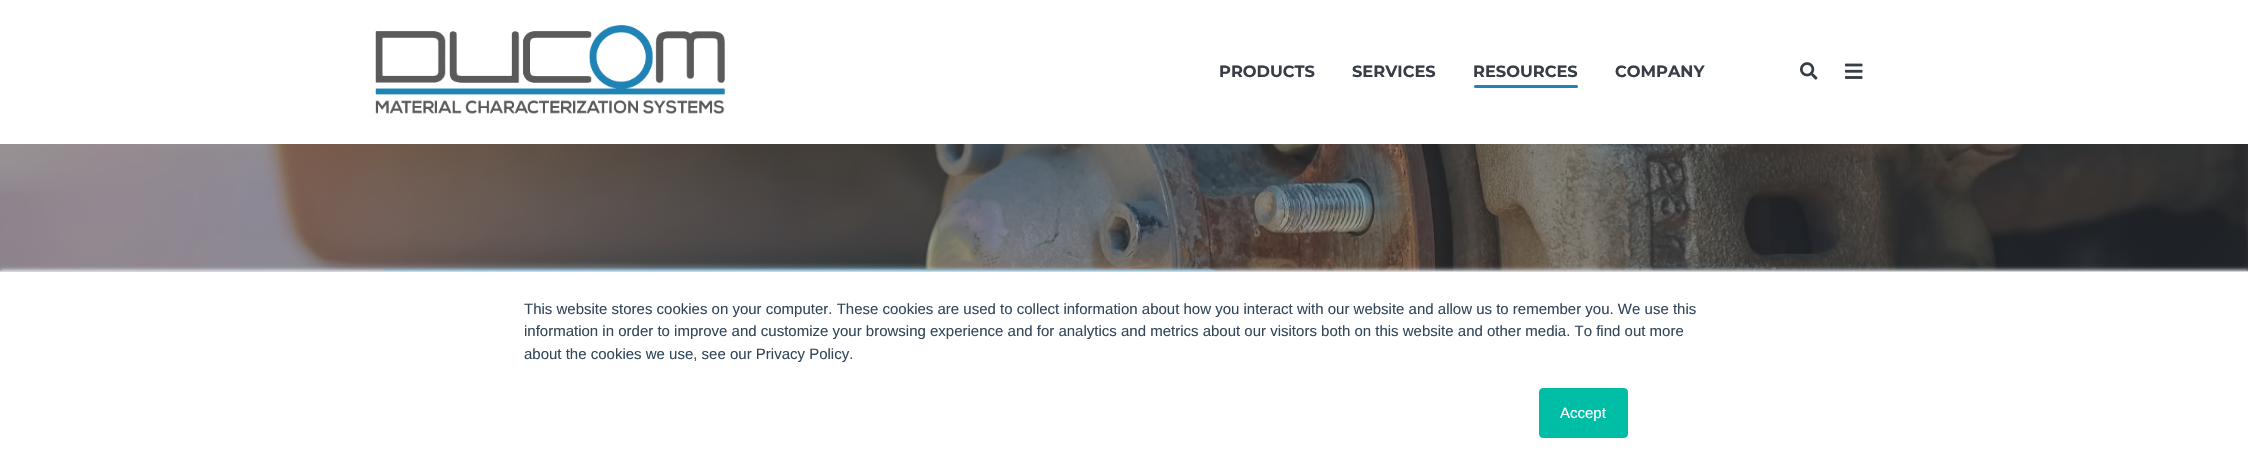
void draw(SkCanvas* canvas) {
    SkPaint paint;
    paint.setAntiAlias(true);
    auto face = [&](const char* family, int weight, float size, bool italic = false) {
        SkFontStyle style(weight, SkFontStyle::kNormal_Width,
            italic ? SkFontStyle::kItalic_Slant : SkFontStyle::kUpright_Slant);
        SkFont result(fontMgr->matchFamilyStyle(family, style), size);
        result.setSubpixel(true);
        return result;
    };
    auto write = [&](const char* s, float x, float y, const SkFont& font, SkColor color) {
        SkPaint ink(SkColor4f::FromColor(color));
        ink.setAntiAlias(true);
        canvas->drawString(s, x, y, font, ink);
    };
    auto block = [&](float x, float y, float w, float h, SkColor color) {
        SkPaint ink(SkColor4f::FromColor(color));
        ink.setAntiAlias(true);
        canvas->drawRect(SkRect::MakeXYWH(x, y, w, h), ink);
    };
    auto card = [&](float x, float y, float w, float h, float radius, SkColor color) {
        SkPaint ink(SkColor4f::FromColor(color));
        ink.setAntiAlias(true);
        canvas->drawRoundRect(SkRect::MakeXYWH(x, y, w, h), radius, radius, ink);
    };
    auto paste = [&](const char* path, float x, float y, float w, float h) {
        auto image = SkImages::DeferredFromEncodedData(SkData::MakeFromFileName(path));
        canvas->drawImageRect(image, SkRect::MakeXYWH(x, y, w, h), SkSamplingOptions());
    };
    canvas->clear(SK_ColorWHITE);
    paste("pic1.png", 375, 25, 350, 89);
    auto kFont1 = face("Montserrat", 700, 16.25f);
    write("PRODUCTS", 1219, 77, kFont1, SkColorSetRGB(56, 61, 71));
    write("SERVICES", 1352, 77, kFont1, SkColorSetRGB(56, 61, 71));
    write("RESOURCES", 1473, 77, kFont1, SkColorSetRGB(56, 61, 71));
    card(1474, 85, 104, 3, 1.5f, SkColorSetRGB(31, 131, 181));
    write("COMPANY", 1615, 77, kFont1, SkColorSetRGB(56, 61, 71));
    paste("pic2.png", 1800, 62, 18, 18);
    paste("pic3.png", 1845, 63, 18, 16);
    paste("pic4.png", 0, 144, 2248, 127);
    block(0, 144, 2248, 127, SkColorSetARGB(128, 56, 61, 71));
    card(380, 269, 838, 140, 8, SkColorSetARGB(230, 31, 131, 181));
    paint.setColor(SkColorSetRGB(234, 240, 246));
    paint.setMaskFilter(SkMaskFilter::MakeBlur(kNormal_SkBlurStyle, 2));
    canvas->drawRect(SkRect::MakeXYWH(0, 270, 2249, 199), paint);
    paint.setMaskFilter(nullptr);
    block(0, 272, 2248, 197, SK_ColorWHITE);
    block(0, 271, 2248, 1, SkColorSetRGB(203, 214, 226));
    auto kFont2 = face("Liberation Sans", 400, 15);
    write("This website stores cookies on your computer. These cookies are used to collect information about how you interact with our website and allow us to remember you. We use this", 524, 314, kFont2, SkColorSetRGB(51, 71, 91));
    write("information in order to improve and customize your browsing experience and for analytics and metrics about our visitors both on this website and other media. To find out more", 524, 336, kFont2, SkColorSetRGB(51, 71, 91));
    write("about the cookies we use, see our Privacy Policy.", 524, 359, kFont2, SkColorSetRGB(51, 71, 91));
    paint.setColor(SkColorSetRGB(0, 189, 165));
    canvas->drawRoundRect(SkRect::MakeXYWH(1539.5f, 388.5f, 88, 49), 3.5f, 3.5f, paint);
    paint.setStyle(SkPaint::kStroke_Style);
    paint.setStrokeWidth(1);
    canvas->drawRoundRect(SkRect::MakeXYWH(1539.5f, 388.5f, 88, 49), 3.5f, 3.5f, paint);
    write("Accept", 1560, 418, kFont2, SK_ColorWHITE);
}
